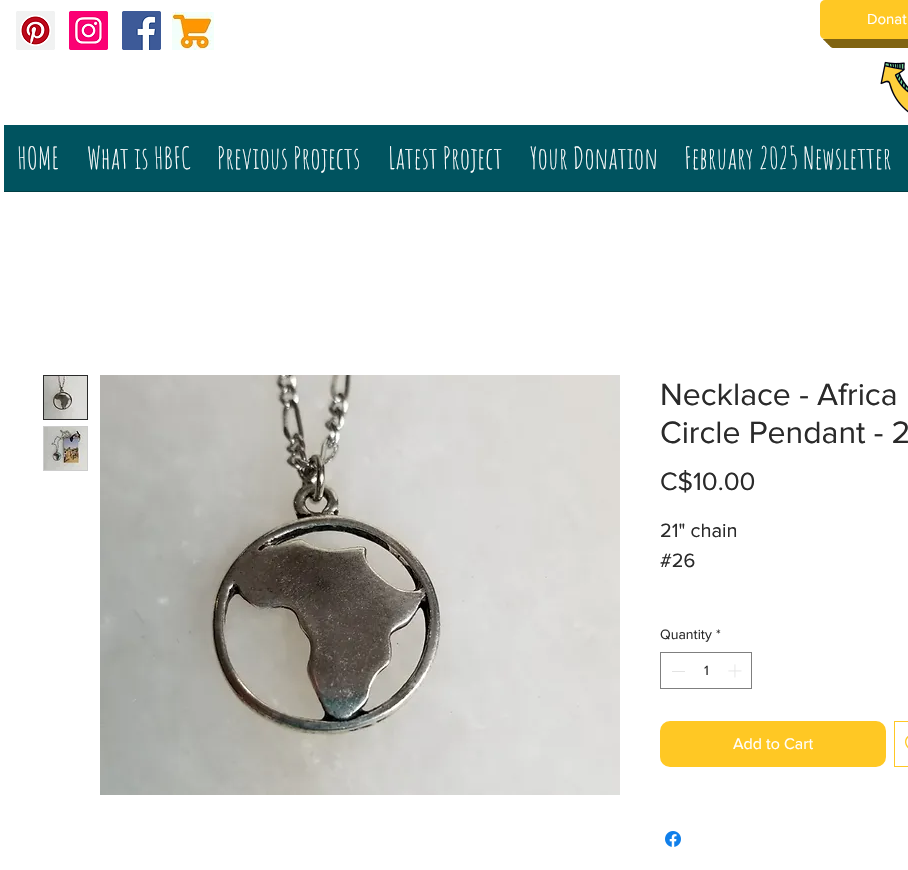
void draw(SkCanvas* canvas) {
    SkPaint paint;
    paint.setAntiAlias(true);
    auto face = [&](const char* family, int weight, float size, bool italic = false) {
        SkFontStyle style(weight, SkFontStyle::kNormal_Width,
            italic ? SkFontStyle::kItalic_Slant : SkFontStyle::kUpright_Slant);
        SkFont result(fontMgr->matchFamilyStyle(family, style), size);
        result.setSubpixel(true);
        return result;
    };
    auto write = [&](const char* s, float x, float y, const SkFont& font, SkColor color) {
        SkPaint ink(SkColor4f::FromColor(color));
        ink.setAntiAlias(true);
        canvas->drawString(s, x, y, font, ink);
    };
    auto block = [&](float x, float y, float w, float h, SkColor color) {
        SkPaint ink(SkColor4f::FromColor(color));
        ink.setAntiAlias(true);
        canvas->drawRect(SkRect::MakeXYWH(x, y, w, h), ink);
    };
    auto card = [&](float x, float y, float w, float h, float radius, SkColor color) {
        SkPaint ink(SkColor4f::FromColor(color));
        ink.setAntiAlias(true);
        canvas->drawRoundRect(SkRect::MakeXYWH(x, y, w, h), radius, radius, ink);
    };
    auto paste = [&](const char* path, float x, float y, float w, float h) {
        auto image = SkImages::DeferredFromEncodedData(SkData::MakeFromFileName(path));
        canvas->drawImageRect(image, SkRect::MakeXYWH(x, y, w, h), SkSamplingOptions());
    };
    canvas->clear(SK_ColorWHITE);
    paste("pic1.png", 16, 11, 39, 39);
    paste("pic2.png", 69, 11, 39, 39);
    paste("pic3.png", 122, 11, 39, 39);
    paste("pic4.png", 172, 12, 42, 38);
    paint.setColor(SkColorSetRGB(128, 100, 18));
    canvas->drawPath(SkPathBuilder().moveTo(829, 39).lineTo(829, 43).cubicTo(829, 46, 831, 48, 834, 48).lineTo(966, 48).cubicTo(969, 48, 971, 46, 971, 43).lineTo(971, 14).cubicTo(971, 11, 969, 9, 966, 9).lineTo(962, 9).lineTo(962, 34).cubicTo(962, 37, 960, 39, 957, 39).close().detach(), paint);
    canvas->drawPath(SkPathBuilder().moveTo(827, 39).lineTo(827, 41).cubicTo(827, 44, 829, 46, 832, 46).lineTo(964, 46).cubicTo(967, 46, 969, 44, 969, 41).lineTo(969, 12).cubicTo(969, 9, 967, 7, 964, 7).lineTo(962, 7).lineTo(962, 34).cubicTo(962, 37, 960, 39, 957, 39).close().detach(), paint);
    canvas->drawPath(SkPathBuilder().moveTo(825, 39).cubicTo(825, 42, 827, 44, 830, 44).lineTo(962, 44).cubicTo(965, 44, 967, 42, 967, 39).lineTo(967, 10).cubicTo(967, 7, 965, 5, 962, 5).lineTo(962, 34).cubicTo(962, 37, 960, 39, 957, 39).close().detach(), paint);
    canvas->drawPath(SkPathBuilder().moveTo(823, 39).cubicTo(824, 41, 826, 42, 828, 42).lineTo(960, 42).cubicTo(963, 42, 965, 40, 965, 37).lineTo(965, 8).cubicTo(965, 6, 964, 4, 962, 3).lineTo(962, 35).cubicTo(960, 43, 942, 39, 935, 39).close().detach(), paint);
    canvas->drawPath(SkPathBuilder().moveTo(822, 38).cubicTo(823, 39, 824, 40, 826, 40).lineTo(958, 40).cubicTo(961, 40, 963, 38, 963, 35).lineTo(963, 6).cubicTo(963, 4, 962, 3, 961, 2).cubicTo(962, 3, 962, 4, 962, 5).lineTo(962, 34).cubicTo(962, 37, 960, 39, 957, 39).lineTo(825, 39).cubicTo(824, 39, 823, 39, 822, 38).close().detach(), paint);
    card(820, 0, 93, 39, 5, SkColorSetRGB(255, 200, 36));
    auto kFont1 = face("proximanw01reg", 400, 15);
    write("Donat", 867, 24, kFont1, SK_ColorWHITE);
    paste("pic5.png", 880, 61, 28, 52);
    block(4, 125, 904, 66, SkColorSetRGB(0, 83, 95));
    block(4, 191, 904, 1, SkColorSetRGB(0, 63, 68));
    auto kFont2 = face("Amatic SC", 400, 30);
    write("HOME", 17, 169, kFont2, SK_ColorWHITE);
    write("What is HBFC", 87, 169, kFont2, SK_ColorWHITE);
    write("Previous Projects", 217, 169, kFont2, SK_ColorWHITE);
    write("Latest Project", 388, 169, kFont2, SK_ColorWHITE);
    write("Your Donation", 530, 169, kFont2, SK_ColorWHITE);
    write("February 2025 Newsletter", 684, 169, kFont2, SK_ColorWHITE);
    paint.setStyle(SkPaint::kStroke_Style);
    paint.setStrokeWidth(1);
    paint.setColor(SkColorSetRGB(42, 42, 42));
    canvas->drawRect(SkRect::MakeXYWH(43.5f, 375.5f, 44, 44), paint);
    paste("pic6.png", 44, 376, 43, 43);
    paint.setColor(SkColorSetRGB(204, 204, 204));
    canvas->drawRect(SkRect::MakeXYWH(43.5f, 426.5f, 44, 44), paint);
    paste("pic7.png", 44, 427, 43, 43);
    paste("pic8.png", 100, 375, 520, 420);
    auto kFont3 = face("proximanw01reg", 400, 32);
    write("Necklace - Africa", 660, 405, kFont3, SkColorSetRGB(42, 42, 42));
    write("Circle Pendant - 2", 660, 443, kFont3, SkColorSetRGB(42, 42, 42));
    auto kFont4 = face("proximanw01reg", 400, 26);
    write("C$10.00", 660, 490, kFont4, SkColorSetRGB(42, 42, 42));
    auto kFont5 = face("proximanw01reg", 400, 20);
    write("21\" chain", 660, 537, kFont5, SkColorSetRGB(42, 42, 42));
    write("#26", 660, 567, kFont5, SkColorSetRGB(42, 42, 42));
    auto kFont6 = face("proximanw01reg", 400, 14);
    write("Quantity", 660, 639, kFont6, SkColorSetRGB(42, 42, 42));
    write("*", 716, 639, kFont6, SkColorSetRGB(42, 42, 42));
    paint.setColor(SkColorSetRGB(127, 127, 127));
    canvas->drawRect(SkRect::MakeXYWH(660.5f, 652.5f, 91, 36), paint);
    block(672, 671, 13, 1, SkColorSetRGB(227, 227, 227));
    write("1", 704, 675, kFont6, SkColorSetRGB(42, 42, 42));
    paste("pic9.png", 728, 664, 14, 14);
    paint.setStyle(SkPaint::kFill_Style);
    paint.setColor(SkColorSetRGB(255, 200, 36));
    canvas->drawRoundRect(SkRect::MakeXYWH(661, 722, 224, 44), 9, 9, paint);
    paint.setStyle(SkPaint::kStroke_Style);
    paint.setStrokeWidth(2);
    canvas->drawRoundRect(SkRect::MakeXYWH(661, 722, 224, 44), 9, 9, paint);
    auto kFont7 = face("proximanw01reg", 400, 16);
    write("Add to Cart", 733, 749, kFont7, SK_ColorWHITE);
    paint.setStrokeWidth(1);
    canvas->drawRect(SkRect::MakeXYWH(894.5f, 721.5f, 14, 45), paint);
    paste("pic10.png", 905, 736, 3, 13);
    paste("pic11.png", 665, 831, 16, 16);
}
